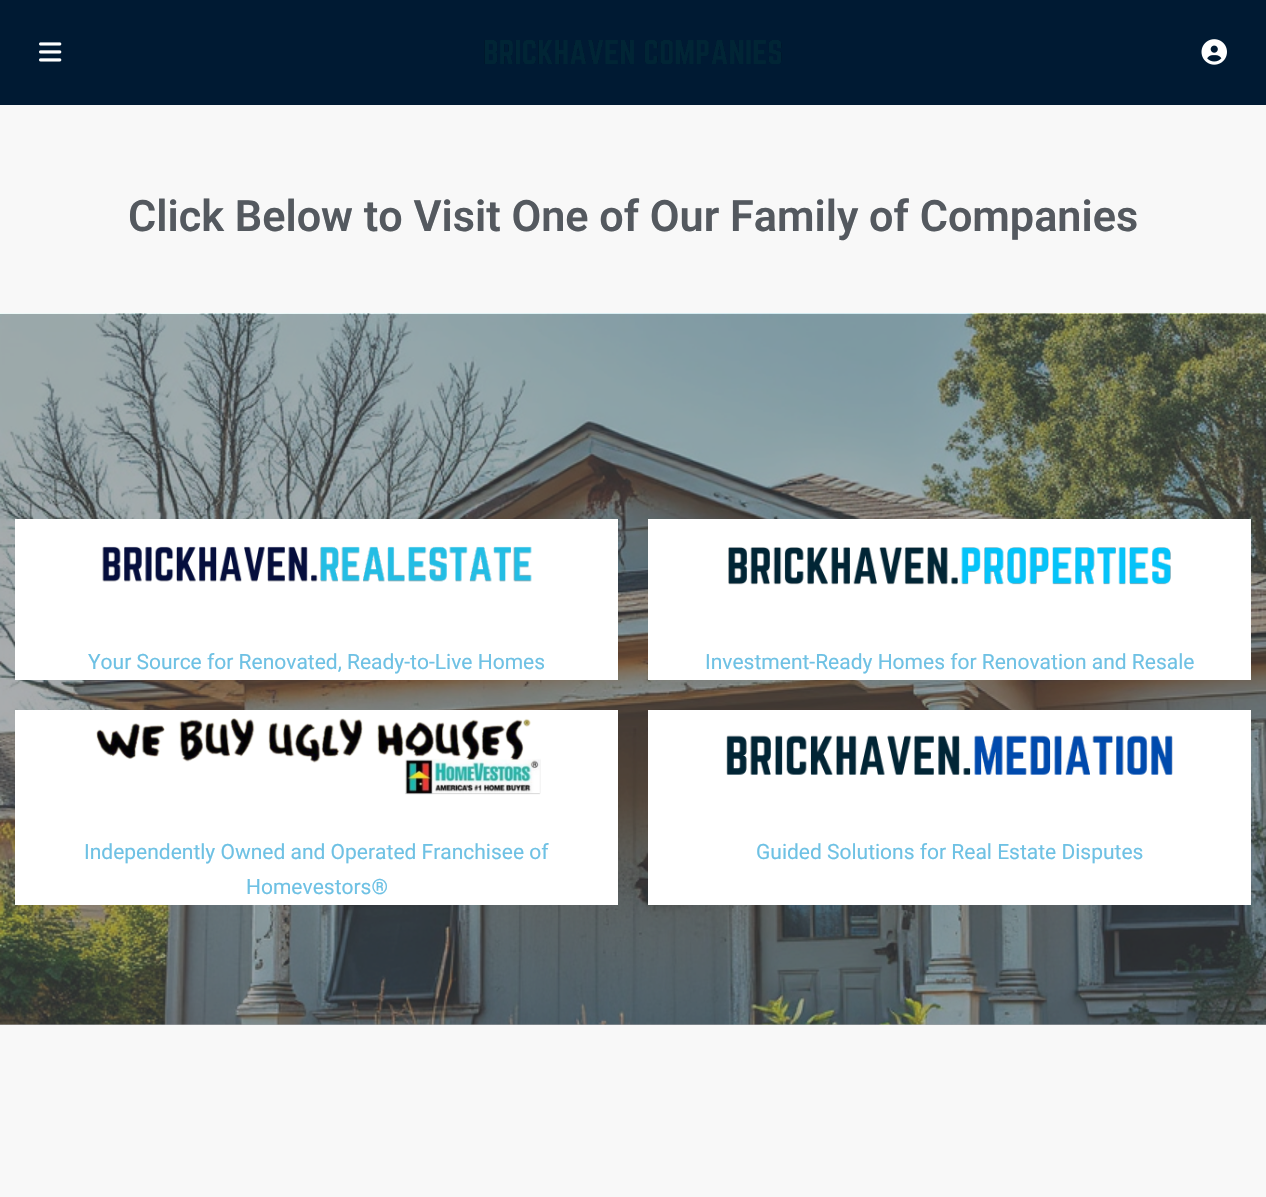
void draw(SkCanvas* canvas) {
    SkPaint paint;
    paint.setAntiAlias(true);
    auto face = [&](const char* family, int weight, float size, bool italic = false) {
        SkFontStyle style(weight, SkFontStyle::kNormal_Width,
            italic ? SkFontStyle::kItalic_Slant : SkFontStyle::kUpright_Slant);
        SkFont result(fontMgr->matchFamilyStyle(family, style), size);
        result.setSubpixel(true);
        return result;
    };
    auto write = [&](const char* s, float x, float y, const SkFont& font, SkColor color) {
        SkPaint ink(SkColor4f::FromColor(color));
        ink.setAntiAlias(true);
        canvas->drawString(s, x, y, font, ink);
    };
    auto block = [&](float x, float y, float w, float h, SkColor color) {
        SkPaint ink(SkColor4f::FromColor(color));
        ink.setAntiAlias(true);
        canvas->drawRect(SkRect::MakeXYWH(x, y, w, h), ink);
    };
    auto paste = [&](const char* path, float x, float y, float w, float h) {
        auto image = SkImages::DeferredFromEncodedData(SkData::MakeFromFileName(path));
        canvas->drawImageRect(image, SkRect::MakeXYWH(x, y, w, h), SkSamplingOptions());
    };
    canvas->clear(SkColorSetRGB(248, 248, 248));
    block(0, 1024, 1266, 1, SkColorSetRGB(166, 169, 172));
    block(0, 0, 1266, 105, SkColorSetRGB(0, 26, 51));
    paste("pic1.png", 39, 42, 23, 20);
    paste("pic2.png", 484, 40, 298, 24);
    paste("pic3.png", 1201, 39, 26, 26);
    auto kFont1 = face("Roboto", 600, 43.2f);
    write("Click Below to Visit One of Our Family of Companies", 128, 231, kFont1, SkColorSetRGB(84, 89, 95));
    paste("pic4.png", 0, 313, 1266, 712);
    block(15, 519, 603, 161, SK_ColorWHITE);
    paste("pic5.png", 102, 546, 430, 36);
    auto kFont2 = face("Roboto", 400, 21);
    write("Your Source for Renovated, Ready-to-Live Homes", 88, 669, kFont2, SkColorSetRGB(110, 193, 228));
    block(648, 519, 603, 161, SK_ColorWHITE);
    paste("pic6.png", 728, 547, 443, 38);
    write("Investment-Ready Homes for Renovation and Resale", 705, 669, kFont2, SkColorSetRGB(110, 193, 228));
    block(15, 710, 603, 195, SK_ColorWHITE);
    paste("pic7.png", 96, 718, 445, 77);
    write("Independently Owned and Operated Franchisee of", 84, 859, kFont2, SkColorSetRGB(110, 193, 228));
    write("Homevestors®", 246, 894, kFont2, SkColorSetRGB(110, 193, 228));
    block(648, 710, 603, 195, SK_ColorWHITE);
    paste("pic8.png", 726, 735, 447, 40);
    write("Guided Solutions for Real Estate Disputes", 756, 859, kFont2, SkColorSetRGB(110, 193, 228));
}
